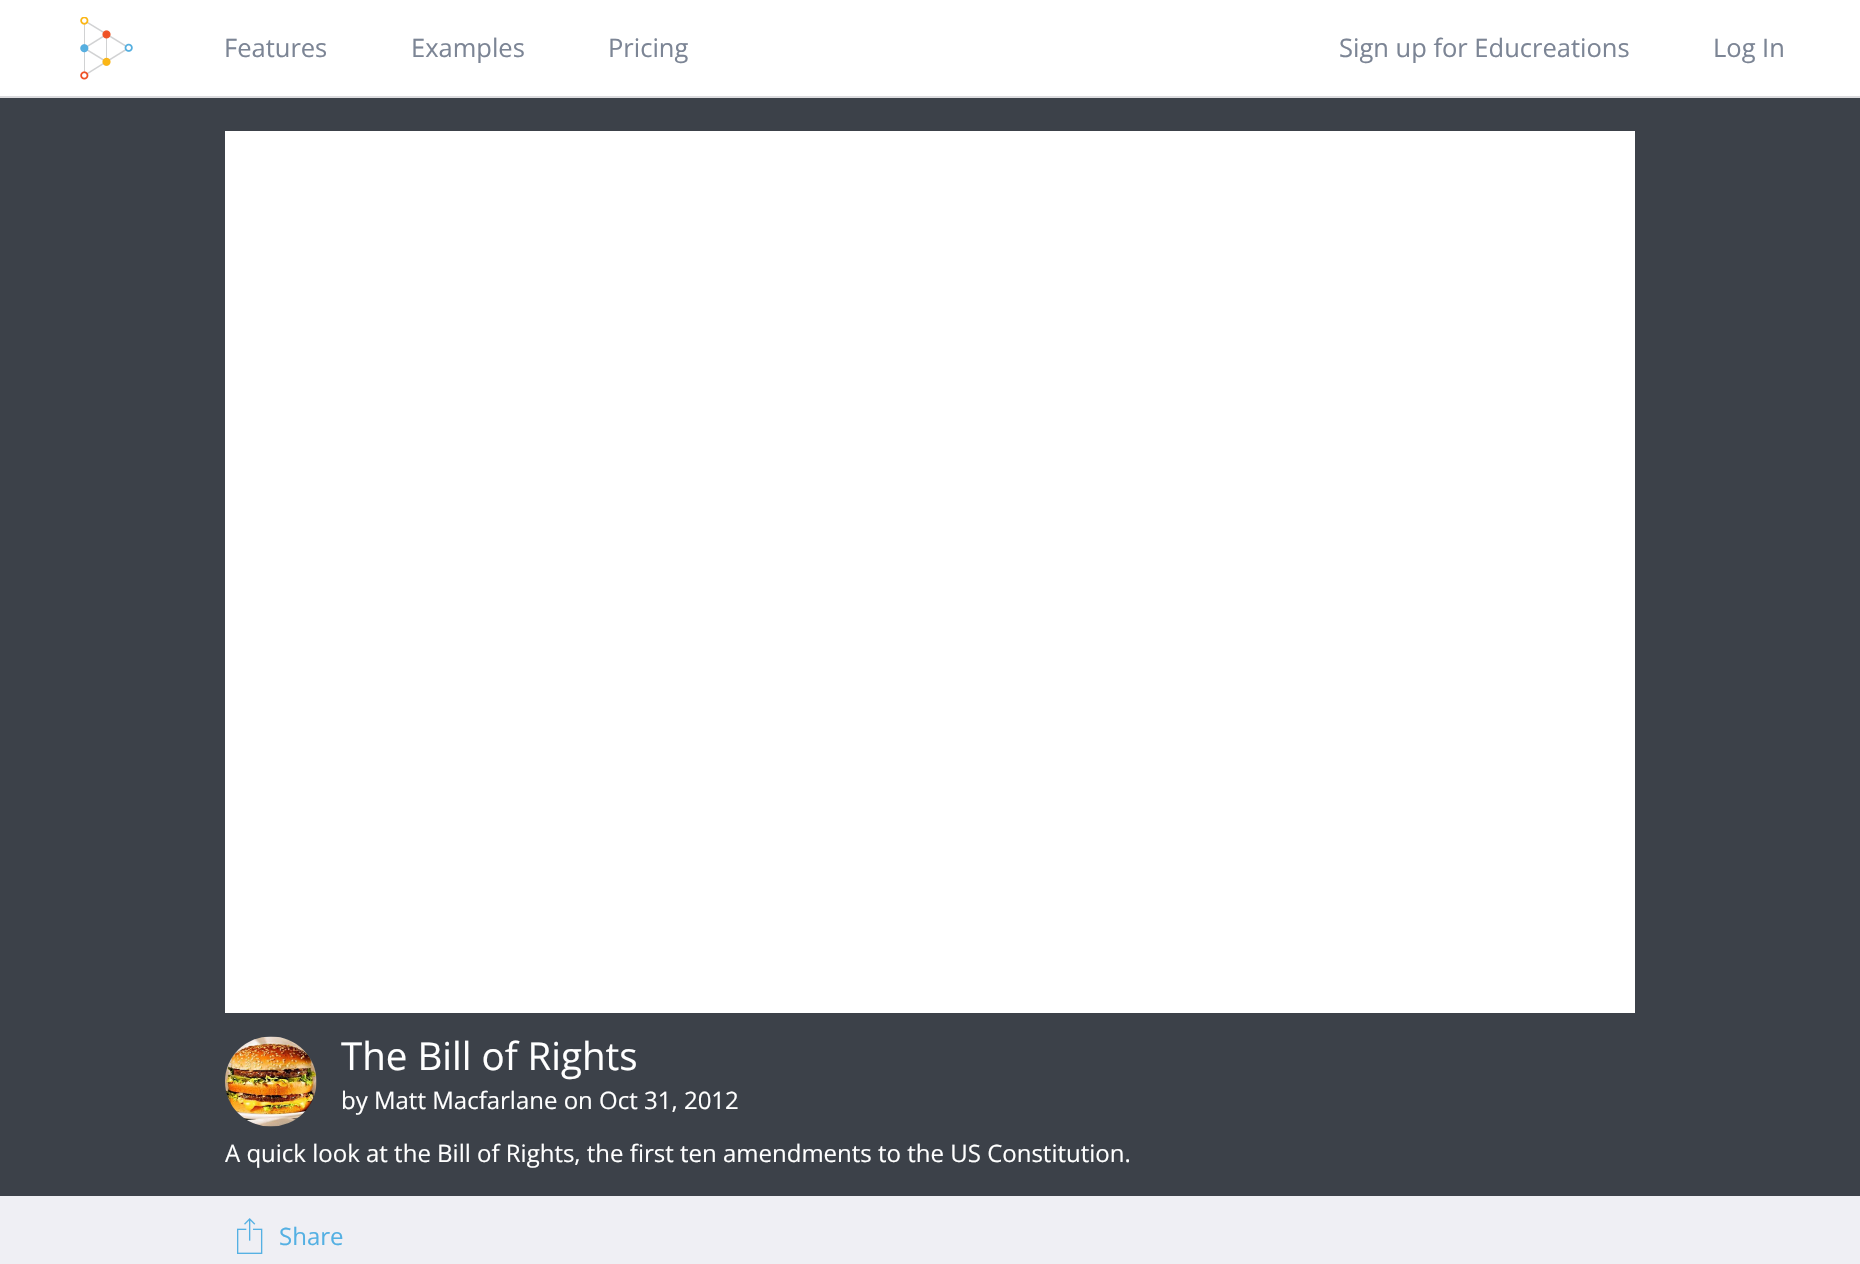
void draw(SkCanvas* canvas) {
    SkPaint paint;
    paint.setAntiAlias(true);
    auto face = [&](const char* family, int weight, float size, bool italic = false) {
        SkFontStyle style(weight, SkFontStyle::kNormal_Width,
            italic ? SkFontStyle::kItalic_Slant : SkFontStyle::kUpright_Slant);
        SkFont result(fontMgr->matchFamilyStyle(family, style), size);
        result.setSubpixel(true);
        return result;
    };
    auto write = [&](const char* s, float x, float y, const SkFont& font, SkColor color) {
        SkPaint ink(SkColor4f::FromColor(color));
        ink.setAntiAlias(true);
        canvas->drawString(s, x, y, font, ink);
    };
    auto block = [&](float x, float y, float w, float h, SkColor color) {
        SkPaint ink(SkColor4f::FromColor(color));
        ink.setAntiAlias(true);
        canvas->drawRect(SkRect::MakeXYWH(x, y, w, h), ink);
    };
    auto paste = [&](const char* path, float x, float y, float w, float h) {
        auto image = SkImages::DeferredFromEncodedData(SkData::MakeFromFileName(path));
        canvas->drawImageRect(image, SkRect::MakeXYWH(x, y, w, h), SkSamplingOptions());
    };
    canvas->clear(SkColorSetRGB(239, 239, 244));
    block(0, 0, 1860, 96, SK_ColorWHITE);
    block(0, 96, 1860, 2, SkColorSetRGB(219, 219, 222));
    paste("pic1.png", 80, 17, 53, 63);
    auto kFont1 = face("Open Sans", 400, 25.5f);
    write("Features", 224, 57, kFont1, SkColorSetRGB(124, 133, 149));
    write("Examples", 411, 57, kFont1, SkColorSetRGB(124, 133, 149));
    write("Pricing", 608, 57, kFont1, SkColorSetRGB(124, 133, 149));
    write("Sign up for Educreations", 1339, 57, kFont1, SkColorSetRGB(124, 133, 149));
    write("Log In", 1713, 57, kFont1, SkColorSetRGB(124, 133, 149));
    block(0, 98, 1860, 1098, SkColorSetRGB(60, 65, 73));
    block(225, 131, 1410, 882, SK_ColorWHITE);
    paste("pic2.png", 225, 1036, 92, 91);
    auto kFont2 = face("Open Sans", 400, 38.5f);
    write("The Bill of Rights", 341, 1070, kFont2, SK_ColorWHITE);
    auto kFont3 = face("Open Sans", 400, 24);
    write("by Matt Macfarlane on Oct 31, 2012", 341, 1109, kFont3, SK_ColorWHITE);
    write("A quick look at the Bill of Rights, the first ten amendments to the US Constitution.", 225, 1162, kFont3, SK_ColorWHITE);
    paste("pic3.png", 237, 1218, 26, 36);
    write("Share", 279, 1245, kFont3, SkColorSetRGB(84, 176, 227));
}
